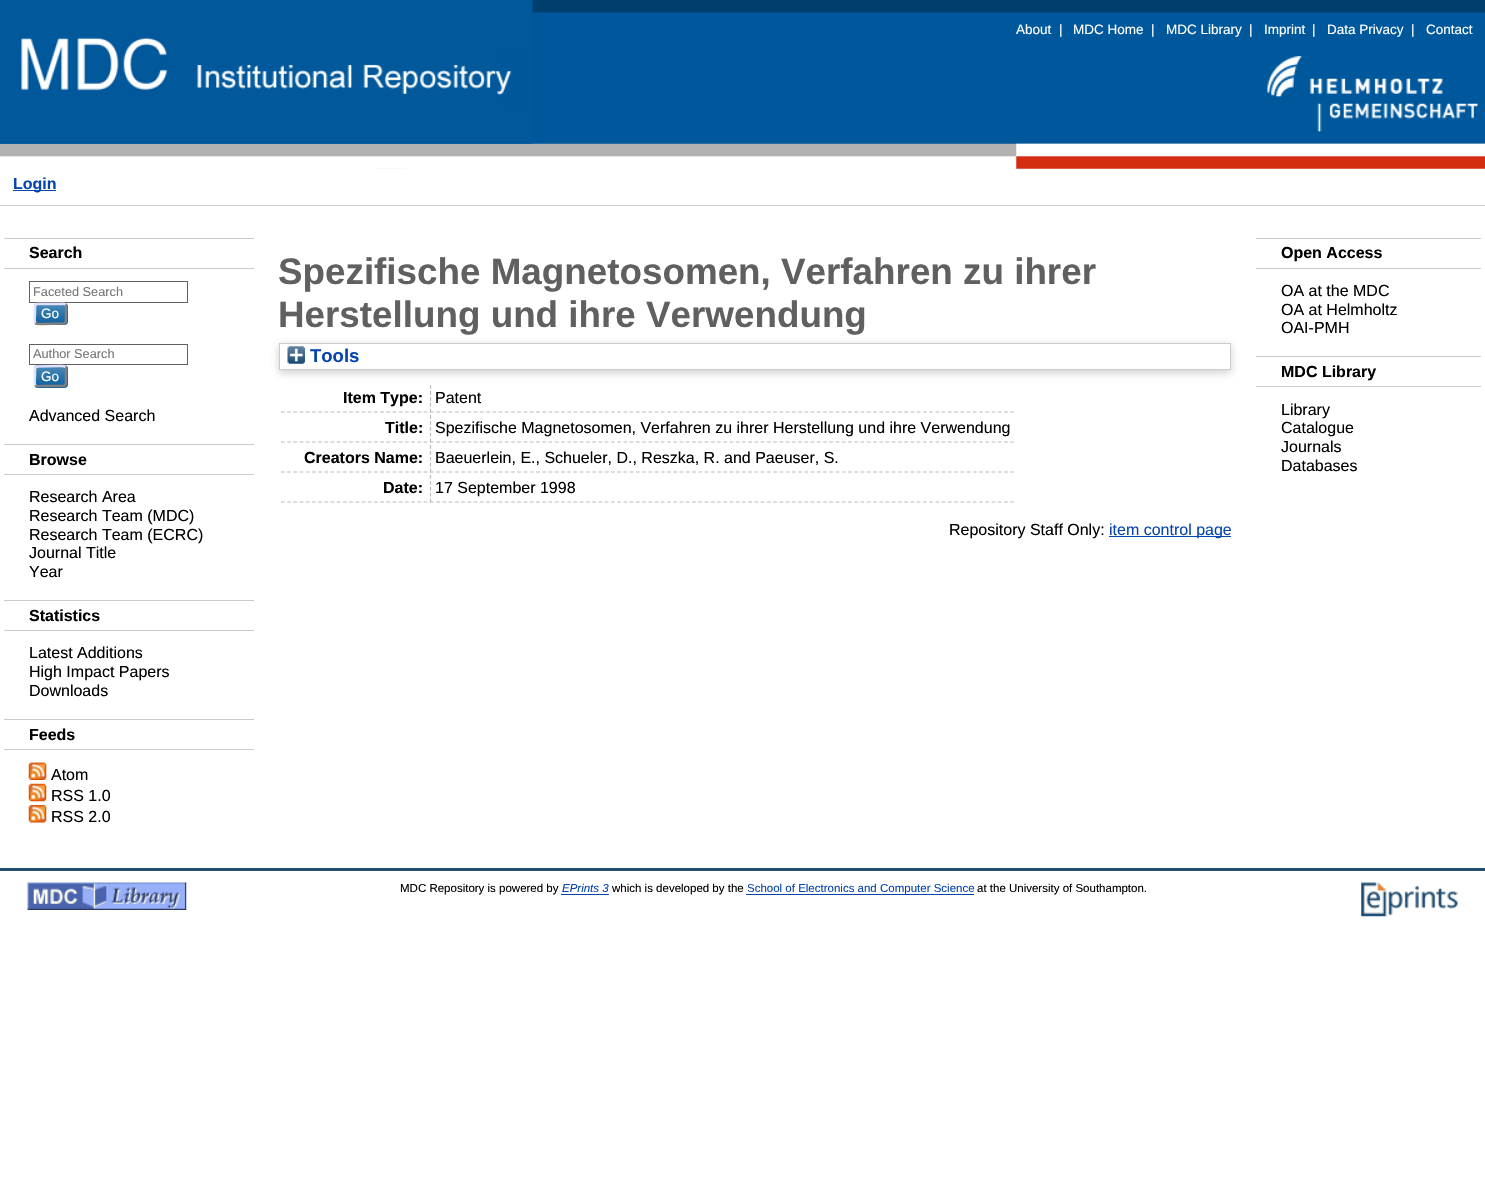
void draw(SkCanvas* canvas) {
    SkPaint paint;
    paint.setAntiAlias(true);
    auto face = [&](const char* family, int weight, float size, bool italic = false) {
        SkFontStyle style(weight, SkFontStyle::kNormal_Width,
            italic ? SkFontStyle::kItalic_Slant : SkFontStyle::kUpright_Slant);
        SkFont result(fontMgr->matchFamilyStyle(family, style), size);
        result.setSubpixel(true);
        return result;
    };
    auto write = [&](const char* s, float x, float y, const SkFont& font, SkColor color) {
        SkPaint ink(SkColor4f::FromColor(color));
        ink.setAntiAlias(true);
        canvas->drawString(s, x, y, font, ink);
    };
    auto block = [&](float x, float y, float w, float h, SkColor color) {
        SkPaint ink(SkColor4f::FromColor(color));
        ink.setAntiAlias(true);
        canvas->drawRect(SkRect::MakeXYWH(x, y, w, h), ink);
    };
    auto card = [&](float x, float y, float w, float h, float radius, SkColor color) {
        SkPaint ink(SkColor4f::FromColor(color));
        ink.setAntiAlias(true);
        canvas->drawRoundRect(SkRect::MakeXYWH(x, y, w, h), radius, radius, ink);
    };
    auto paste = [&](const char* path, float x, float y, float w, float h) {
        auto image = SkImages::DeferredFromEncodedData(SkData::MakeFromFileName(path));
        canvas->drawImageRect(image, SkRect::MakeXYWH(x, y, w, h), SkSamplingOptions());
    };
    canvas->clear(SK_ColorWHITE);
    paste("pic1.png", 375, 0, 1110, 157);
    paste("pic6.png", 27, 168, 379, 1);
    paste("pic2.png", 0, 143, 375, 26);
    paste("pic3.png", 0, 0, 533, 144);
    paste("pic4.png", 1016, 143, 469, 26);
    auto kFont1 = face("Liberation Sans", 400, 13.5f);
    write("About", 1016, 34, kFont1, SK_ColorWHITE);
    write("|", 1059, 34, kFont1, SK_ColorWHITE);
    write("MDC Home", 1073, 34, kFont1, SK_ColorWHITE);
    write("|", 1151, 34, kFont1, SK_ColorWHITE);
    write("MDC Library", 1166, 34, kFont1, SK_ColorWHITE);
    write("|", 1249, 34, kFont1, SK_ColorWHITE);
    write("Imprint", 1264, 34, kFont1, SK_ColorWHITE);
    write("|", 1312, 34, kFont1, SK_ColorWHITE);
    write("Data Privacy", 1327, 34, kFont1, SK_ColorWHITE);
    write("|", 1411, 34, kFont1, SK_ColorWHITE);
    write("Contact", 1426, 34, kFont1, SK_ColorWHITE);
    paste("pic5.png", 1267, 56, 211, 76);
    block(13, 190, 43, 1, SkColorSetRGB(6, 69, 173));
    auto kFont2 = face("Liberation Sans", 700, 16);
    write("Login", 13, 189, kFont2, SkColorSetRGB(6, 69, 173));
    block(0, 205, 1485, 1, SkColorSetRGB(204, 204, 204));
    block(4, 238, 250, 1, SkColorSetRGB(204, 204, 204));
    block(4, 268, 250, 1, SkColorSetRGB(204, 204, 204));
    write("Search", 29, 258, kFont2, SK_ColorBLACK);
    paint.setStyle(SkPaint::kStroke_Style);
    paint.setStrokeWidth(1);
    paint.setColor(SkColorSetRGB(96, 96, 96));
    canvas->drawRect(SkRect::MakeXYWH(29.5f, 281.5f, 158, 21), paint);
    auto kFont3 = face("Liberation Sans", 400, 12.75f);
    write("Faceted Search", 33, 296, kFont3, SkColorSetRGB(117, 117, 117));
    card(34, 303, 34, 22, 4, SkColorSetRGB(0, 88, 153));
    paste("pic7.png", 34, 302, 34, 23);
    paint.setStrokeWidth(2.5f);
    paint.setColor(SkColorSetRGB(128, 128, 128));
    canvas->drawPath(SkPathBuilder().moveTo(65.5f, 304.5f).cubicTo(67, 306, 66, 312, 66, 314).lineTo(66, 319).cubicTo(66, 320.5f, 66.5f, 323, 64, 323.5f).lineTo(42, 324).cubicTo(40.5f, 324, 37, 324.5f, 35.5f, 323).detach(), paint);
    paint.setColor(SkColorSetRGB(224, 224, 255));
    canvas->drawPath(SkPathBuilder().moveTo(35.5f, 323).cubicTo(34, 321.5f, 35, 315.5f, 35, 314).lineTo(35, 309).cubicTo(35, 307, 34.5f, 304.5f, 37, 304).lineTo(59.5f, 304).cubicTo(60.5f, 304, 64, 303, 65.5f, 304.5f).detach(), paint);
    write("Go", 41, 318, kFont1, SK_ColorWHITE);
    paint.setStrokeWidth(1);
    paint.setColor(SkColorSetRGB(96, 96, 96));
    canvas->drawRect(SkRect::MakeXYWH(29.5f, 344.5f, 158, 20), paint);
    write("Author Search", 33, 358, kFont3, SkColorSetRGB(117, 117, 117));
    card(34, 365, 34, 23, 4, SkColorSetRGB(0, 88, 153));
    paste("pic8.png", 34, 365, 34, 22);
    paint.setStrokeWidth(2.5f);
    paint.setColor(SkColorSetRGB(128, 128, 128));
    canvas->drawPath(SkPathBuilder().moveTo(65.5f, 367).cubicTo(67, 368.5f, 66, 374.5f, 66, 376).lineTo(66, 381).cubicTo(66, 383, 66.5f, 385.5f, 64, 386).lineTo(42, 386).cubicTo(40.5f, 386, 37, 387, 35.5f, 385.5f).detach(), paint);
    paint.setColor(SkColorSetRGB(224, 224, 255));
    canvas->drawPath(SkPathBuilder().moveTo(35.5f, 385.5f).cubicTo(34, 384, 35, 378, 35, 376).lineTo(35, 371).cubicTo(35, 369.5f, 34.5f, 367, 37, 366.5f).lineTo(59.5f, 366).cubicTo(60.5f, 366, 64, 365.5f, 65.5f, 367).detach(), paint);
    write("Go", 41, 381, kFont1, SK_ColorWHITE);
    auto kFont4 = face("Liberation Sans", 400, 16);
    write("Advanced Search", 29, 421, kFont4, SK_ColorBLACK);
    block(4, 444, 250, 1, SkColorSetRGB(204, 204, 204));
    block(4, 474, 250, 1, SkColorSetRGB(204, 204, 204));
    write("Browse", 29, 465, kFont2, SK_ColorBLACK);
    write("Research Area", 29, 502, kFont4, SK_ColorBLACK);
    write("Research Team (MDC)", 29, 521, kFont4, SK_ColorBLACK);
    write("Research Team (ECRC)", 29, 540, kFont4, SK_ColorBLACK);
    write("Journal Title", 29, 558, kFont4, SK_ColorBLACK);
    write("Year", 29, 577, kFont4, SK_ColorBLACK);
    block(4, 600, 250, 1, SkColorSetRGB(204, 204, 204));
    block(4, 630, 250, 1, SkColorSetRGB(204, 204, 204));
    write("Statistics", 29, 621, kFont2, SK_ColorBLACK);
    write("Latest Additions", 29, 658, kFont4, SK_ColorBLACK);
    write("High Impact Papers", 29, 677, kFont4, SK_ColorBLACK);
    write("Downloads", 29, 696, kFont4, SK_ColorBLACK);
    block(4, 719, 250, 1, SkColorSetRGB(204, 204, 204));
    block(4, 749, 250, 1, SkColorSetRGB(204, 204, 204));
    write("Feeds", 29, 740, kFont2, SK_ColorBLACK);
    paste("pic9.png", 28, 762, 19, 18);
    write("Atom", 51, 780, kFont4, SK_ColorBLACK);
    paste("pic10.png", 28, 783, 19, 19);
    write("RSS 1.0", 51, 801, kFont4, SK_ColorBLACK);
    paste("pic11.png", 28, 805, 19, 18);
    write("RSS 2.0", 51, 822, kFont4, SK_ColorBLACK);
    auto kFont5 = face("Liberation Sans", 700, 36.8f);
    write("Spezifische Magnetosomen, Verfahren zu ihrer", 278, 284, kFont5, SkColorSetRGB(96, 96, 96));
    canvas->save();
    canvas->clipPath(SkPathBuilder(SkPathFillType::kEvenOdd).moveTo(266, 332).lineTo(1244, 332).lineTo(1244, 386).lineTo(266, 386).close().moveTo(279, 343).lineTo(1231, 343).lineTo(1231, 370).lineTo(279, 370).close().detach(), true);
    paint.setStyle(SkPaint::kFill_Style);
    paint.setColor(SkColorSetARGB(77, 100, 100, 100));
    paint.setMaskFilter(SkMaskFilter::MakeBlur(kNormal_SkBlurStyle, 4));
    canvas->drawRect(SkRect::MakeXYWH(279, 345, 952, 28), paint);
    paint.setMaskFilter(nullptr);
    canvas->restore();
    write("Herstellung und ihre Verwendung", 278, 327, kFont5, SkColorSetRGB(96, 96, 96));
    paint.setStyle(SkPaint::kStroke_Style);
    paint.setStrokeWidth(1);
    paint.setColor(SkColorSetRGB(204, 204, 204));
    canvas->drawRect(SkRect::MakeXYWH(279.5f, 343.5f, 951, 26), paint);
    paste("pic12.png", 287, 346, 18, 18);
    auto kFont6 = face("Liberation Sans", 700, 18.5f);
    write("Tools", 310, 362, kFont6, SkColorSetRGB(6, 69, 173));
    paint.setStrokeWidth(1.2f);
    paint.setColor(SkColorSetRGB(187, 187, 187));
    paint.setPathEffect(SkDashPathEffect::Make({{3.75f, 2.45f}}, 0));
    canvas->drawPath(SkPathBuilder().moveTo(281, 412).lineTo(427.5f, 412).detach(), paint);
    paint.setPathEffect(nullptr);
    write("Item Type:", 343, 403, kFont2, SK_ColorBLACK);
    paint.setPathEffect(SkDashPathEffect::Make({{3.75f, 2.49f}}, 0));
    canvas->drawPath(SkPathBuilder().moveTo(430, 412).lineTo(1014, 412).detach(), paint);
    paint.setPathEffect(nullptr);
    paint.setPathEffect(SkDashPathEffect::Make({{3.75f, 2.19f}}, 0));
    canvas->drawPath(SkPathBuilder().moveTo(430.5f, 385).lineTo(430.5f, 412.5f).detach(), paint);
    paint.setPathEffect(nullptr);
    write("Patent", 435, 403, kFont4, SK_ColorBLACK);
    paint.setPathEffect(SkDashPathEffect::Make({{3.75f, 2.45f}}, 0));
    canvas->drawPath(SkPathBuilder().moveTo(281, 442).lineTo(427.5f, 442).detach(), paint);
    paint.setPathEffect(nullptr);
    write("Title:", 385, 433, kFont2, SK_ColorBLACK);
    paint.setPathEffect(SkDashPathEffect::Make({{3.75f, 2.49f}}, 0));
    canvas->drawPath(SkPathBuilder().moveTo(430, 442).lineTo(1014, 442).detach(), paint);
    paint.setPathEffect(nullptr);
    paint.setPathEffect(SkDashPathEffect::Make({{3.75f, 2.19f}}, 0));
    canvas->drawPath(SkPathBuilder().moveTo(430.5f, 415).lineTo(430.5f, 442.5f).detach(), paint);
    paint.setPathEffect(nullptr);
    write("Spezifische Magnetosomen, Verfahren zu ihrer Herstellung und ihre Verwendung", 435, 433, kFont4, SK_ColorBLACK);
    paint.setPathEffect(SkDashPathEffect::Make({{3.75f, 2.45f}}, 0));
    canvas->drawPath(SkPathBuilder().moveTo(281, 472).lineTo(427.5f, 472).detach(), paint);
    paint.setPathEffect(nullptr);
    write("Creators Name:", 304, 463, kFont2, SK_ColorBLACK);
    paint.setPathEffect(SkDashPathEffect::Make({{3.75f, 2.49f}}, 0));
    canvas->drawPath(SkPathBuilder().moveTo(430, 472).lineTo(1014, 472).detach(), paint);
    paint.setPathEffect(nullptr);
    paint.setPathEffect(SkDashPathEffect::Make({{3.75f, 2.19f}}, 0));
    canvas->drawPath(SkPathBuilder().moveTo(430.5f, 445).lineTo(430.5f, 472.5f).detach(), paint);
    paint.setPathEffect(nullptr);
    write("Baeuerlein, E., Schueler, D., Reszka, R. and Paeuser, S.", 435, 463, kFont4, SK_ColorBLACK);
    paint.setPathEffect(SkDashPathEffect::Make({{3.75f, 2.45f}}, 0));
    canvas->drawPath(SkPathBuilder().moveTo(281, 502).lineTo(427.5f, 502).detach(), paint);
    paint.setPathEffect(nullptr);
    write("Date:", 383, 493, kFont2, SK_ColorBLACK);
    paint.setPathEffect(SkDashPathEffect::Make({{3.75f, 2.49f}}, 0));
    canvas->drawPath(SkPathBuilder().moveTo(430, 502).lineTo(1014, 502).detach(), paint);
    paint.setPathEffect(nullptr);
    paint.setPathEffect(SkDashPathEffect::Make({{3.75f, 2.19f}}, 0));
    canvas->drawPath(SkPathBuilder().moveTo(430.5f, 475).lineTo(430.5f, 502.5f).detach(), paint);
    paint.setPathEffect(nullptr);
    write("17 September 1998", 435, 493, kFont4, SK_ColorBLACK);
    write("Repository Staff Only:", 949, 535, kFont4, SK_ColorBLACK);
    block(1109, 536, 122, 1, SkColorSetRGB(6, 69, 173));
    write("item control page", 1109, 535, kFont4, SkColorSetRGB(6, 69, 173));
    block(1256, 238, 225, 1, SkColorSetRGB(204, 204, 204));
    block(1256, 268, 225, 1, SkColorSetRGB(204, 204, 204));
    write("Open Access", 1281, 258, kFont2, SK_ColorBLACK);
    write("OA at the MDC", 1281, 296, kFont4, SK_ColorBLACK);
    write("OA at Helmholtz", 1281, 315, kFont4, SK_ColorBLACK);
    write("OAI-PMH", 1281, 333, kFont4, SK_ColorBLACK);
    block(1256, 356, 225, 1, SkColorSetRGB(204, 204, 204));
    block(1256, 386, 225, 1, SkColorSetRGB(204, 204, 204));
    write("MDC Library", 1281, 377, kFont2, SK_ColorBLACK);
    write("Library", 1281, 415, kFont4, SK_ColorBLACK);
    write("Catalogue", 1281, 433, kFont4, SK_ColorBLACK);
    write("Journals", 1281, 452, kFont4, SK_ColorBLACK);
    write("Databases", 1281, 471, kFont4, SK_ColorBLACK);
    block(0, 868, 1485, 3, SkColorSetRGB(32, 79, 118));
    paste("pic13.png", 27, 882, 160, 28);
    auto kFont7 = face("Liberation Sans", 400, 11.5f);
    write("MDC Repository is powered by", 400, 892, kFont7, SK_ColorBLACK);
    auto kFont8 = face("Liberation Sans", 400, 11.5f, true);
    write("EPrints 3", 562, 892, kFont8, SkColorSetRGB(6, 69, 173));
    block(561, 894, 48, 1, SkColorSetRGB(6, 69, 173));
    write("which is developed by the", 612, 892, kFont7, SK_ColorBLACK);
    block(746, 894, 228, 1, SkColorSetRGB(6, 69, 173));
    write("School of Electronics and Computer Science", 747, 892, kFont7, SkColorSetRGB(6, 69, 173));
    write("at the University of Southampton.", 977, 892, kFont7, SK_ColorBLACK);
    paste("pic14.png", 1361, 882, 97, 35);
}
